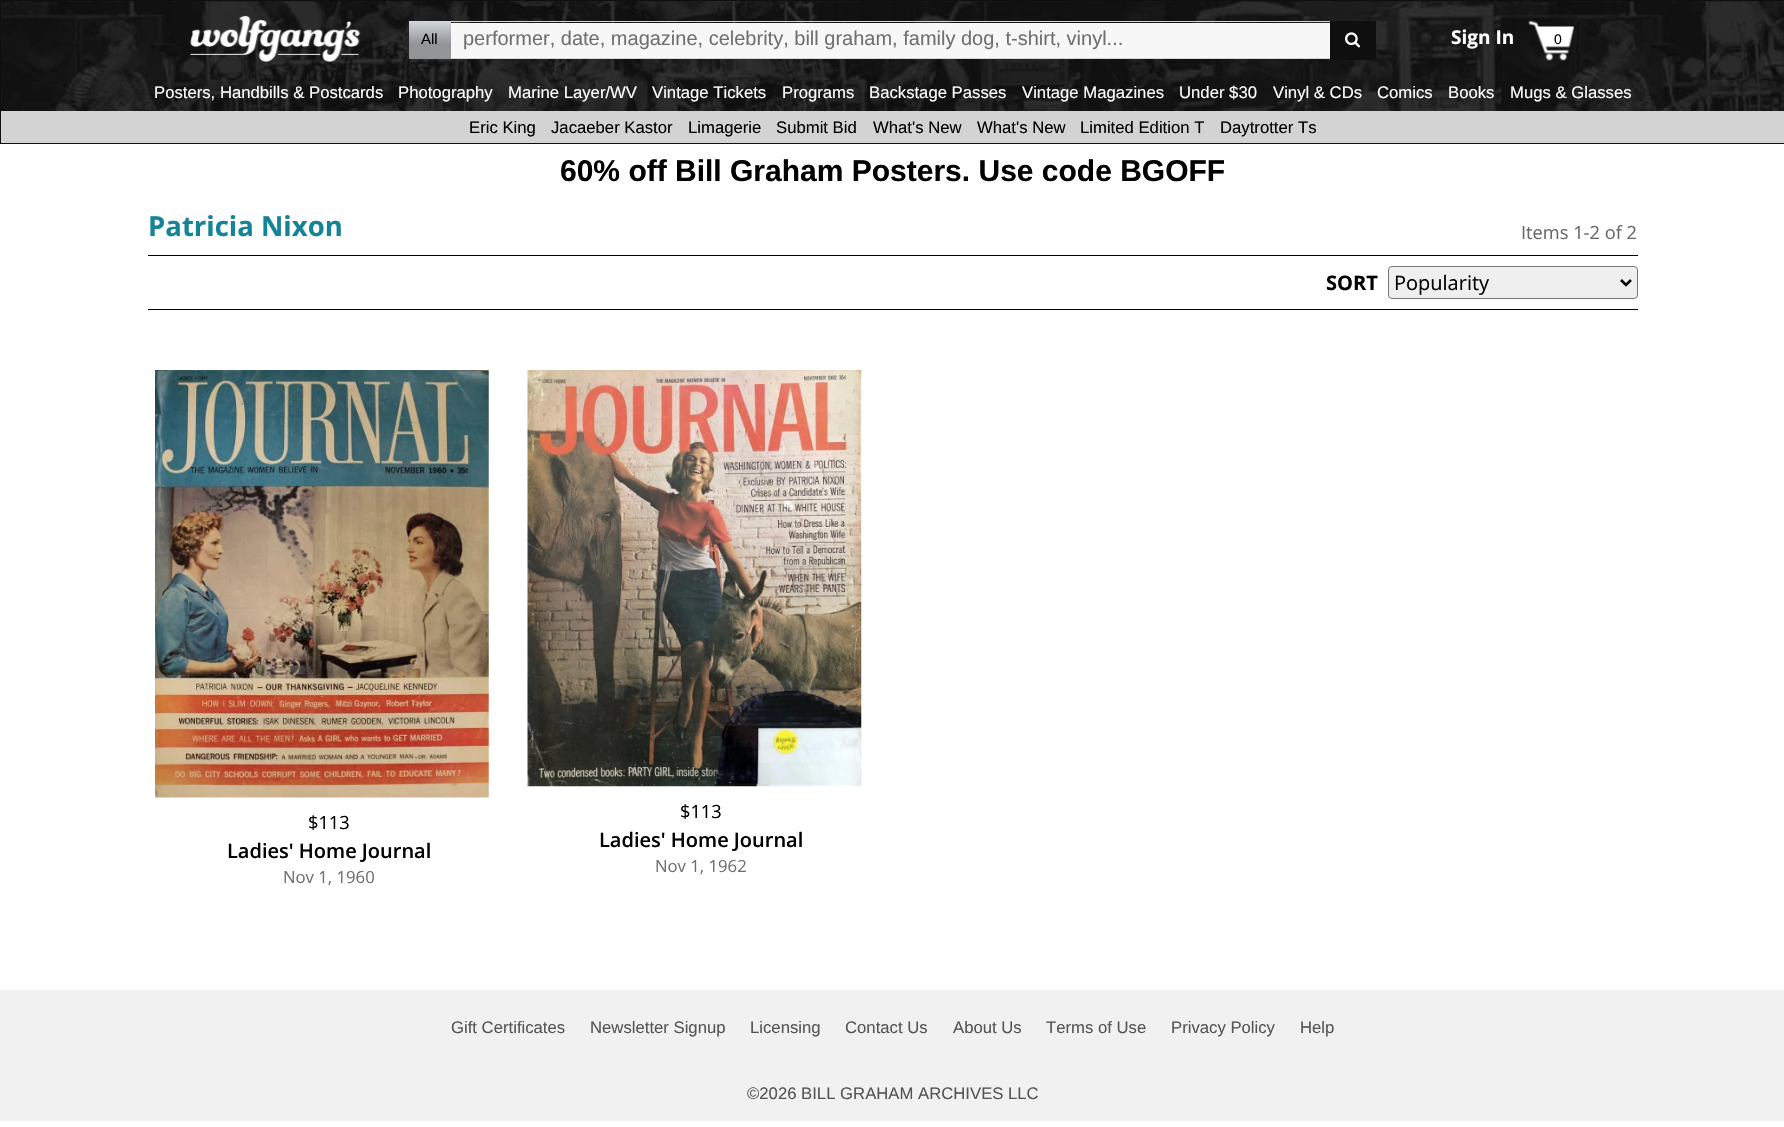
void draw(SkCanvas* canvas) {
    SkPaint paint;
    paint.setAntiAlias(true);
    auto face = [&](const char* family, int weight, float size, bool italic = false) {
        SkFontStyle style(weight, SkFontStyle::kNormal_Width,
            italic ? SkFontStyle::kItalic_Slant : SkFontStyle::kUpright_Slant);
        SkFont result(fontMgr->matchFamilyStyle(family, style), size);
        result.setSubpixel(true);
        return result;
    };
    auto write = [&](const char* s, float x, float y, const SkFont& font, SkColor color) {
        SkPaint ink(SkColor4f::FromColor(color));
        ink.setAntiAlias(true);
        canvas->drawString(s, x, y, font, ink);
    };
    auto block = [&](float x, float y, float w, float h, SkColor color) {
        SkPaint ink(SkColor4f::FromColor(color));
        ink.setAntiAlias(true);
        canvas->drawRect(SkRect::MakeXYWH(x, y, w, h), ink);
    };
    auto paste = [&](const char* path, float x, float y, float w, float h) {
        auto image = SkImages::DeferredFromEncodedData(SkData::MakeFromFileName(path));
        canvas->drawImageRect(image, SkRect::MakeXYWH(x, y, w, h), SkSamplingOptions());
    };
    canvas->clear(SK_ColorWHITE);
    paste("pic1.png", 1, 1, 1783, 110);
    paint.setStyle(SkPaint::kStroke_Style);
    paint.setStrokeWidth(1);
    paint.setColor(SkColorSetRGB(15, 15, 15));
    canvas->drawRect(SkRect::MakeXYWH(0.5f, 0.5f, 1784, 143), paint);
    paste("pic2.png", 190, 15, 171, 47);
    paint.setStyle(SkPaint::kFill_Style);
    {
        const SkColor colors[] = {SkColorSetRGB(210, 215, 221), SkColorSetRGB(146, 148, 150)};
        const float stops[] = {0, 0.61f};
        const SkPoint ends[] = {{430, 21}, {430, 59}};
        paint.setShader(SkGradientShader::MakeLinear(ends, colors, stops, 2, SkTileMode::kClamp));
        paint.setAlpha(255);
    }
    canvas->drawRect(SkRect::MakeXYWH(409, 21, 42, 38), paint);
    auto kFont1 = face("Liberation Sans", 400, 15);
    write("All", 421, 44, kFont1, SK_ColorBLACK);
    block(451, 23, 879, 35, SkColorSetRGB(247, 247, 247));
    block(451, 21, 879, 1, SkColorSetRGB(215, 215, 215));
    block(451, 58, 879, 1, SkColorSetRGB(215, 215, 215));
    auto kFont2 = face("Liberation Sans", 400, 20);
    write("performer, date, magazine, celebrity, bill graham, family dog, t-shirt, vinyl...", 463, 45, kFont2, SkColorSetRGB(112, 112, 112));
    block(1330, 21, 46, 39, SkColorSetRGB(15, 15, 15));
    paste("pic3.png", 1345, 32, 16, 16);
    paste("pic4.png", 1528, 20, 46, 41);
    auto kFont3 = face("Open Sans", 700, 19);
    write("Sign In", 1451, 44, kFont3, SK_ColorWHITE);
    auto kFont4 = face("Liberation Sans", 400, 14);
    write("0", 1554, 44, kFont4, SK_ColorBLACK);
    auto kFont5 = face("Liberation Sans", 400, 16.7f);
    write("Posters, Handbills & Postcards", 154, 98, kFont5, SK_ColorWHITE);
    write("Photography", 398, 98, kFont5, SK_ColorWHITE);
    write("Marine Layer/WV", 508, 98, kFont5, SK_ColorWHITE);
    write("Vintage Tickets", 652, 98, kFont5, SK_ColorWHITE);
    write("Programs", 782, 98, kFont5, SK_ColorWHITE);
    write("Backstage Passes", 869, 98, kFont5, SK_ColorWHITE);
    write("Vintage Magazines", 1022, 98, kFont5, SK_ColorWHITE);
    write("Under $30", 1179, 98, kFont5, SK_ColorWHITE);
    write("Vinyl & CDs", 1273, 98, kFont5, SK_ColorWHITE);
    write("Comics", 1377, 98, kFont5, SK_ColorWHITE);
    write("Books", 1448, 98, kFont5, SK_ColorWHITE);
    write("Mugs & Glasses", 1510, 98, kFont5, SK_ColorWHITE);
    block(1, 111, 1783, 32, SkColorSetRGB(211, 211, 211));
    write("Eric King", 469, 133, kFont5, SK_ColorBLACK);
    write("Jacaeber Kastor", 551, 133, kFont5, SK_ColorBLACK);
    write("Limagerie", 688, 133, kFont5, SK_ColorBLACK);
    write("Submit Bid", 776, 133, kFont5, SK_ColorBLACK);
    write("What's New", 873, 133, kFont5, SK_ColorBLACK);
    write("What's New", 977, 133, kFont5, SK_ColorBLACK);
    write("Limited Edition T", 1080, 133, kFont5, SK_ColorBLACK);
    write("Daytrotter Ts", 1220, 133, kFont5, SK_ColorBLACK);
    auto kFont6 = face("Liberation Sans", 700, 30);
    write("60% off Bill Graham Posters. Use code BGOFF", 560, 181, kFont6, SK_ColorBLACK);
    block(148, 255, 1490, 1, SK_ColorBLACK);
    auto kFont7 = face("Open Sans", 700, 27.5f);
    write("Patricia Nixon", 148, 236, kFont7, SkColorSetRGB(21, 132, 150));
    auto kFont8 = face("Open Sans", 400, 18.25f);
    write("Items 1-2 of 2", 1521, 239, kFont8, SkColorSetRGB(104, 104, 104));
    block(148, 309, 1490, 1, SK_ColorBLACK);
    auto kFont9 = face("Open Sans", 700, 20);
    write("SORT", 1326, 290, kFont9, SK_ColorBLACK);
    paint.setShader(nullptr);
    paint.setColor(SkColorSetRGB(239, 239, 239));
    canvas->drawRoundRect(SkRect::MakeXYWH(1388.5f, 266.5f, 249, 32), 3.5f, 3.5f, paint);
    paint.setStyle(SkPaint::kStroke_Style);
    paint.setColor(SkColorSetRGB(118, 118, 118));
    canvas->drawRoundRect(SkRect::MakeXYWH(1388.5f, 266.5f, 249, 32), 3.5f, 3.5f, paint);
    paint.setStrokeWidth(2.5f);
    paint.setColor(SK_ColorBLACK);
    canvas->drawPath(SkPathBuilder().moveTo(1621, 280).lineTo(1626, 285).lineTo(1631, 280).detach(), paint);
    auto kFont10 = face("Open Sans", 400, 20);
    write("Popularity", 1394, 290, kFont10, SK_ColorBLACK);
    paste("pic5.png", 155, 370, 334, 428);
    write("$113", 308, 829, kFont8, SK_ColorBLACK);
    auto kFont11 = face("Open Sans", 600, 20);
    write("Ladies' Home Journal", 227, 858, kFont11, SK_ColorBLACK);
    auto kFont12 = face("Open Sans", 400, 16.7f);
    write("Nov 1, 1960", 283, 883, kFont12, SkColorSetRGB(112, 112, 112));
    paste("pic6.png", 527, 370, 335, 417);
    write("$113", 680, 818, kFont8, SK_ColorBLACK);
    write("Ladies' Home Journal", 599, 847, kFont11, SK_ColorBLACK);
    write("Nov 1, 1962", 655, 872, kFont12, SkColorSetRGB(112, 112, 112));
    block(0, 990, 1784, 131, SkColorSetRGB(241, 241, 241));
    write("Gift Certificates", 451, 1033, kFont5, SkColorSetRGB(85, 85, 85));
    write("Newsletter Signup", 590, 1033, kFont5, SkColorSetRGB(85, 85, 85));
    write("Licensing", 750, 1033, kFont5, SkColorSetRGB(85, 85, 85));
    write("Contact Us", 845, 1033, kFont5, SkColorSetRGB(85, 85, 85));
    write("About Us", 953, 1033, kFont5, SkColorSetRGB(85, 85, 85));
    write("Terms of Use", 1046, 1033, kFont5, SkColorSetRGB(85, 85, 85));
    write("Privacy Policy", 1171, 1033, kFont5, SkColorSetRGB(85, 85, 85));
    write("Help", 1300, 1033, kFont5, SkColorSetRGB(85, 85, 85));
    write("©2026 BILL GRAHAM ARCHIVES LLC", 747, 1099, kFont5, SkColorSetRGB(85, 85, 85));
}
